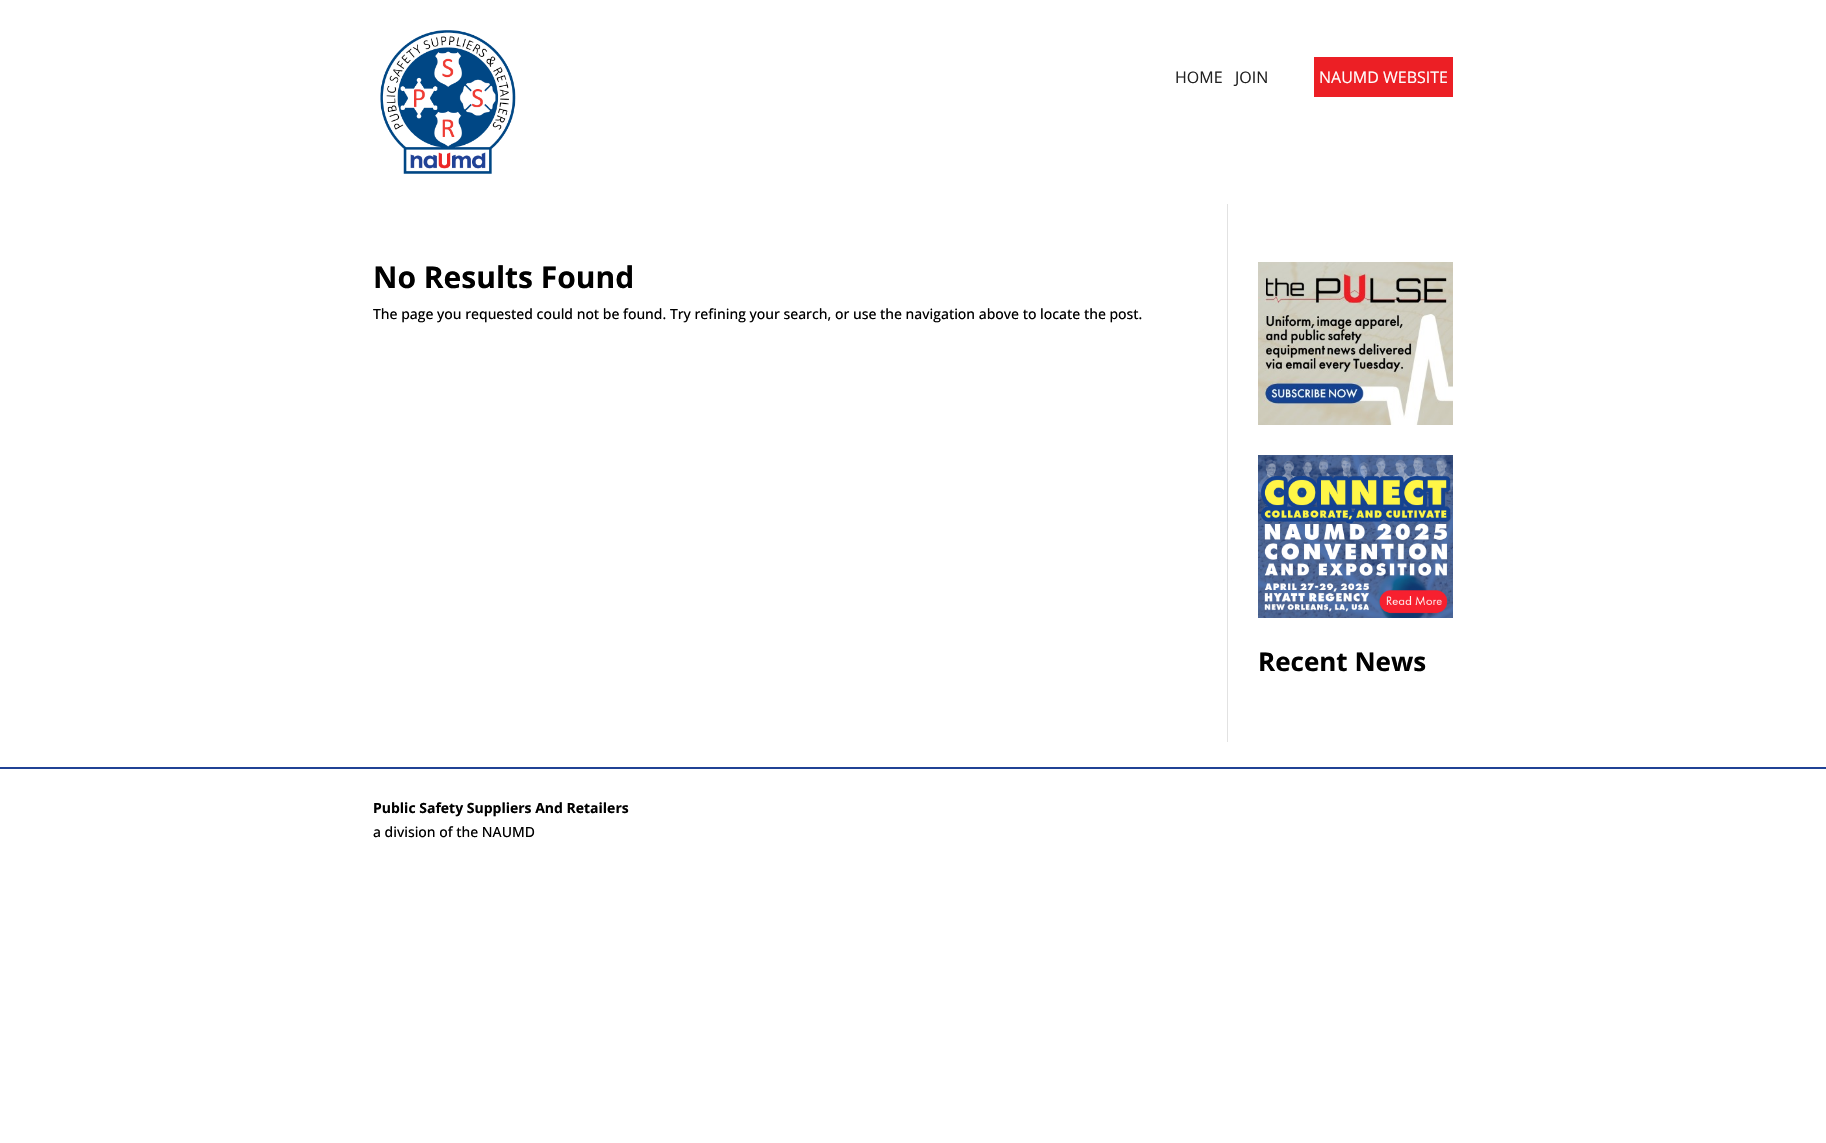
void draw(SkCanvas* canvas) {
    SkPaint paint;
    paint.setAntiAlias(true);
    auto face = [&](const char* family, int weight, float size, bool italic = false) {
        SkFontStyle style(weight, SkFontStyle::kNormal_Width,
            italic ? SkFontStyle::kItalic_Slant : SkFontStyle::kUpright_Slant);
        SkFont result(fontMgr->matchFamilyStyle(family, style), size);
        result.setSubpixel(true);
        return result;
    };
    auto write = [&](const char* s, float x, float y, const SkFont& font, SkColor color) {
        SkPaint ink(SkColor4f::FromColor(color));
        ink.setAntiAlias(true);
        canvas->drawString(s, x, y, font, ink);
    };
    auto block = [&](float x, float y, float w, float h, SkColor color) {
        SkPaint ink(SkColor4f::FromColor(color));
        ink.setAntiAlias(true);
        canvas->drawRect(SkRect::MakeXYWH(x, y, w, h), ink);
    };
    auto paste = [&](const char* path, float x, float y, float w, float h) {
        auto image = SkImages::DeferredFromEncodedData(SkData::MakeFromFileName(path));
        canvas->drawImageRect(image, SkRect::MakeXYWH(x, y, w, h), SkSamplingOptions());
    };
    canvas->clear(SK_ColorWHITE);
    paste("pic1.png", 380, 30, 136, 144);
    auto kFont1 = face("Open Sans", 400, 16);
    write("HOME", 1175, 83, kFont1, SkColorSetRGB(34, 34, 34));
    write("JOIN", 1235, 83, kFont1, SkColorSetRGB(34, 34, 34));
    block(1314, 57, 139, 40, SkColorSetRGB(236, 31, 37));
    write("NAUMD WEBSITE", 1319, 83, kFont1, SK_ColorWHITE);
    block(1227, 204, 1, 538, SkColorSetRGB(226, 226, 226));
    auto kFont2 = face("Open Sans", 700, 30);
    write("No Results Found", 373, 288, kFont2, SK_ColorBLACK);
    auto kFont3 = face("Open Sans", 500, 14);
    write("The page you requested could not be found. Try refining your search, or use the navigation above to locate the post.", 373, 319, kFont3, SK_ColorBLACK);
    paste("pic2.png", 1258, 262, 195, 163);
    paste("pic3.png", 1258, 455, 195, 163);
    auto kFont4 = face("Open Sans", 700, 26);
    write("Recent News", 1258, 671, kFont4, SK_ColorBLACK);
    block(0, 767, 1826, 2, SkColorSetRGB(32, 66, 149));
    auto kFont5 = face("Open Sans", 700, 14);
    write("Public Safety Suppliers And Retailers", 373, 813, kFont5, SK_ColorBLACK);
    write("a division of the NAUMD", 373, 837, kFont3, SK_ColorBLACK);
}
